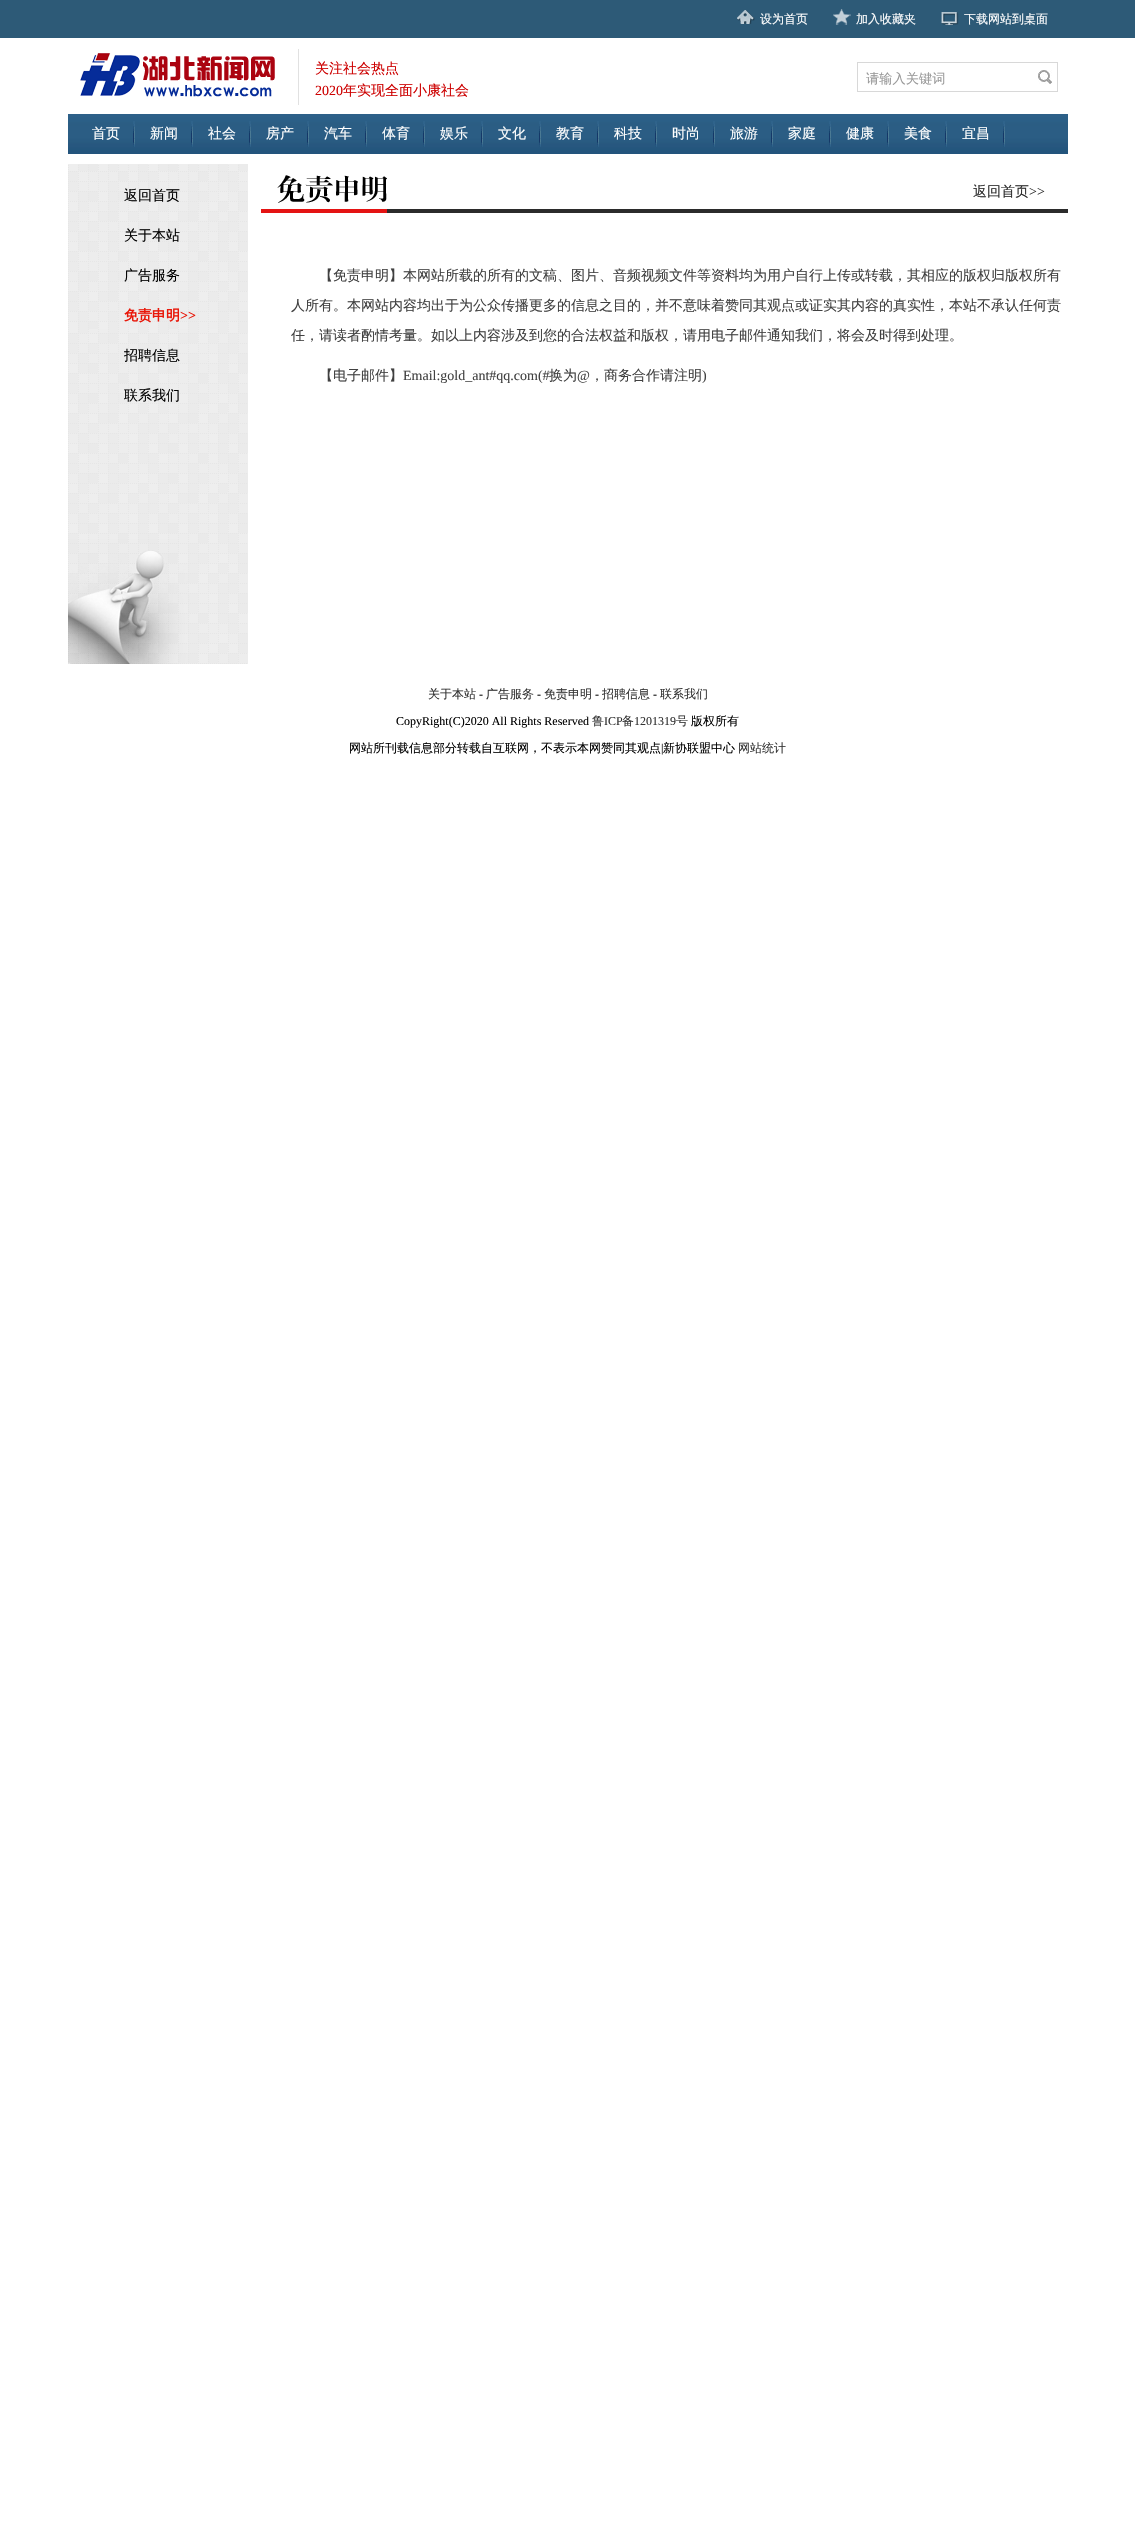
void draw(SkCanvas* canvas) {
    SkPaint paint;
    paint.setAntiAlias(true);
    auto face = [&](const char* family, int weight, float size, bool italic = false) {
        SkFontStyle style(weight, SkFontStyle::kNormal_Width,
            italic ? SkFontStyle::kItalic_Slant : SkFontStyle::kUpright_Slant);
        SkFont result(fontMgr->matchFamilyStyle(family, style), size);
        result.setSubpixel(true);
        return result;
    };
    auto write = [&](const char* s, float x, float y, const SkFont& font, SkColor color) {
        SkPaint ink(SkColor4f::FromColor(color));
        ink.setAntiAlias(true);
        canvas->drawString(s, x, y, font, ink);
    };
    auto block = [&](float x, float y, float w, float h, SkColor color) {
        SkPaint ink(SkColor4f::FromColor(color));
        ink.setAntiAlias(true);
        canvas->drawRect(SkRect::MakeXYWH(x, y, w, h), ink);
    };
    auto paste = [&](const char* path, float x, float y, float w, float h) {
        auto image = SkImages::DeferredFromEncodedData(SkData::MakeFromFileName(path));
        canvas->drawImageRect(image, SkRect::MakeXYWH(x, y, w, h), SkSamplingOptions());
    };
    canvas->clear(SK_ColorWHITE);
    block(0, 0, 1135, 38, SkColorSetRGB(45, 90, 119));
    paste("pic1.png", 737, 10, 18, 14);
    auto kFont1 = face("WenQuanYi Zen Hei", 500, 12);
    write("设为首页", 760, 23, kFont1, SK_ColorWHITE);
    paste("pic2.png", 833, 9, 18, 16);
    write("加入收藏夹", 856, 23, kFont1, SK_ColorWHITE);
    paste("pic3.png", 941, 12, 18, 13);
    write("下载网站到桌面", 964, 23, kFont1, SK_ColorWHITE);
    paste("pic4.png", 80, 53, 195, 44);
    block(298, 49, 1, 56, SkColorSetRGB(225, 225, 225));
    auto kFont2 = face("WenQuanYi Zen Hei", 500, 14);
    write("关注社会热点", 315, 73, kFont2, SkColorSetRGB(205, 0, 0));
    auto kFont3 = face("Liberation Serif", 400, 14);
    write("2020", 315, 95, kFont3, SkColorSetRGB(205, 0, 0));
    write("年实现全面小康社会", 343, 95, kFont2, SkColorSetRGB(205, 0, 0));
    paint.setStyle(SkPaint::kStroke_Style);
    paint.setStrokeWidth(1);
    paint.setColor(SkColorSetRGB(216, 216, 216));
    canvas->drawRect(SkRect::MakeXYWH(857.5f, 62.5f, 200, 29), paint);
    auto kFont4 = face("WenQuanYi Zen Hei", 500, 13.25f);
    write("请输入关键词", 866, 83, kFont4, SkColorSetRGB(153, 153, 153));
    paste("pic5.png", 1038, 70, 14, 14);
    paste("pic6.png", 68, 114, 1000, 40);
    paste("pic7.png", 133, 121, 2, 26);
    write("首页", 92, 138, kFont2, SK_ColorWHITE);
    paste("pic7.png", 191, 121, 2, 26);
    write("新闻", 150, 138, kFont2, SK_ColorWHITE);
    paste("pic7.png", 249, 121, 2, 26);
    write("社会", 208, 138, kFont2, SK_ColorWHITE);
    paste("pic7.png", 307, 121, 2, 26);
    write("房产", 266, 138, kFont2, SK_ColorWHITE);
    paste("pic7.png", 365, 121, 2, 26);
    write("汽车", 324, 138, kFont2, SK_ColorWHITE);
    paste("pic7.png", 423, 121, 2, 26);
    write("体育", 382, 138, kFont2, SK_ColorWHITE);
    paste("pic7.png", 481, 121, 2, 26);
    write("娱乐", 440, 138, kFont2, SK_ColorWHITE);
    paste("pic7.png", 539, 121, 2, 26);
    write("文化", 498, 138, kFont2, SK_ColorWHITE);
    paste("pic7.png", 597, 121, 2, 26);
    write("教育", 556, 138, kFont2, SK_ColorWHITE);
    paste("pic7.png", 655, 121, 2, 26);
    write("科技", 614, 138, kFont2, SK_ColorWHITE);
    paste("pic7.png", 713, 121, 2, 26);
    write("时尚", 672, 138, kFont2, SK_ColorWHITE);
    paste("pic7.png", 771, 121, 2, 26);
    write("旅游", 730, 138, kFont2, SK_ColorWHITE);
    paste("pic7.png", 829, 121, 2, 26);
    write("家庭", 788, 138, kFont2, SK_ColorWHITE);
    paste("pic7.png", 887, 121, 2, 26);
    write("健康", 846, 138, kFont2, SK_ColorWHITE);
    paste("pic7.png", 945, 121, 2, 26);
    write("美食", 904, 138, kFont2, SK_ColorWHITE);
    paste("pic7.png", 1003, 121, 2, 26);
    write("宜昌", 962, 138, kFont2, SK_ColorWHITE);
    paste("pic8.png", 68, 164, 180, 500);
    write("返回首页", 124, 200, kFont2, SK_ColorBLACK);
    write("关于本站", 124, 240, kFont2, SK_ColorBLACK);
    write("广告服务", 124, 280, kFont2, SK_ColorBLACK);
    auto kFont5 = face("WenQuanYi Zen Hei", 700, 14);
    write("免责申明", 124, 320, kFont5, SkColorSetRGB(233, 24, 10));
    auto kFont6 = face("Liberation Serif", 700, 14);
    write(">>", 180, 320, kFont6, SkColorSetRGB(233, 24, 10));
    write("招聘信息", 124, 360, kFont2, SK_ColorBLACK);
    write("联系我们", 124, 400, kFont2, SK_ColorBLACK);
    paste("pic9.png", 261, 175, 807, 38);
    write("返回首页", 973, 196, kFont2, SkColorSetRGB(43, 43, 43));
    write(">>", 1029, 196, kFont3, SkColorSetRGB(43, 43, 43));
    write("【免责申明】本网站所载的所有的文稿、图片、音频视频文件等资料均为用户自行上传或转载，其相应的版权归版权所有", 319, 280, kFont2, SkColorSetRGB(64, 64, 64));
    write("人所有。本网站内容均出于为公众传播更多的信息之目的，并不意味着赞同其观点或证实其内容的真实性，本站不承认任何责", 291, 310, kFont2, SkColorSetRGB(64, 64, 64));
    write("任，请读者酌情考量。如以上内容涉及到您的合法权益和版权，请用电子邮件通知我们，将会及时得到处理。", 291, 340, kFont2, SkColorSetRGB(64, 64, 64));
    write("【电子邮件】", 319, 380, kFont2, SkColorSetRGB(64, 64, 64));
    write("Email:gold_ant#qq.com(#", 403, 380, kFont3, SkColorSetRGB(64, 64, 64));
    write("换为", 549, 380, kFont2, SkColorSetRGB(64, 64, 64));
    write("@", 577, 380, kFont3, SkColorSetRGB(64, 64, 64));
    write("，商务合作请注明", 590, 380, kFont2, SkColorSetRGB(64, 64, 64));
    write(")", 702, 380, kFont3, SkColorSetRGB(64, 64, 64));
    write("关于本站", 428, 698, kFont1, SkColorSetRGB(51, 51, 51));
    auto kFont7 = face("Liberation Serif", 400, 12);
    write("-", 479, 698, kFont7, SK_ColorBLACK);
    write("广告服务", 486, 698, kFont1, SkColorSetRGB(51, 51, 51));
    write("-", 537, 698, kFont7, SK_ColorBLACK);
    write("免责申明", 544, 698, kFont1, SkColorSetRGB(51, 51, 51));
    write("-", 595, 698, kFont7, SK_ColorBLACK);
    write("招聘信息", 602, 698, kFont1, SkColorSetRGB(51, 51, 51));
    write("-", 653, 698, kFont7, SK_ColorBLACK);
    write("联系我们", 660, 698, kFont1, SkColorSetRGB(51, 51, 51));
    write("CopyRight(C)2020 All Rights Reserved", 396, 725, kFont7, SK_ColorBLACK);
    write("鲁", 592, 725, kFont1, SkColorSetRGB(51, 51, 51));
    write("ICP", 604, 725, kFont7, SkColorSetRGB(51, 51, 51));
    write("备", 622, 725, kFont1, SkColorSetRGB(51, 51, 51));
    write("1201319", 634, 725, kFont7, SkColorSetRGB(51, 51, 51));
    write("号", 676, 725, kFont1, SkColorSetRGB(51, 51, 51));
    write("版权所有", 691, 725, kFont1, SK_ColorBLACK);
    write("网站所刊载信息部分转载自互联网，不表示本网赞同其观点", 349, 752, kFont1, SK_ColorBLACK);
    write("|", 661, 752, kFont7, SK_ColorBLACK);
    write("新协联盟中心", 663, 752, kFont1, SK_ColorBLACK);
    write("网站统计", 738, 752, kFont1, SkColorSetRGB(51, 51, 51));
}
